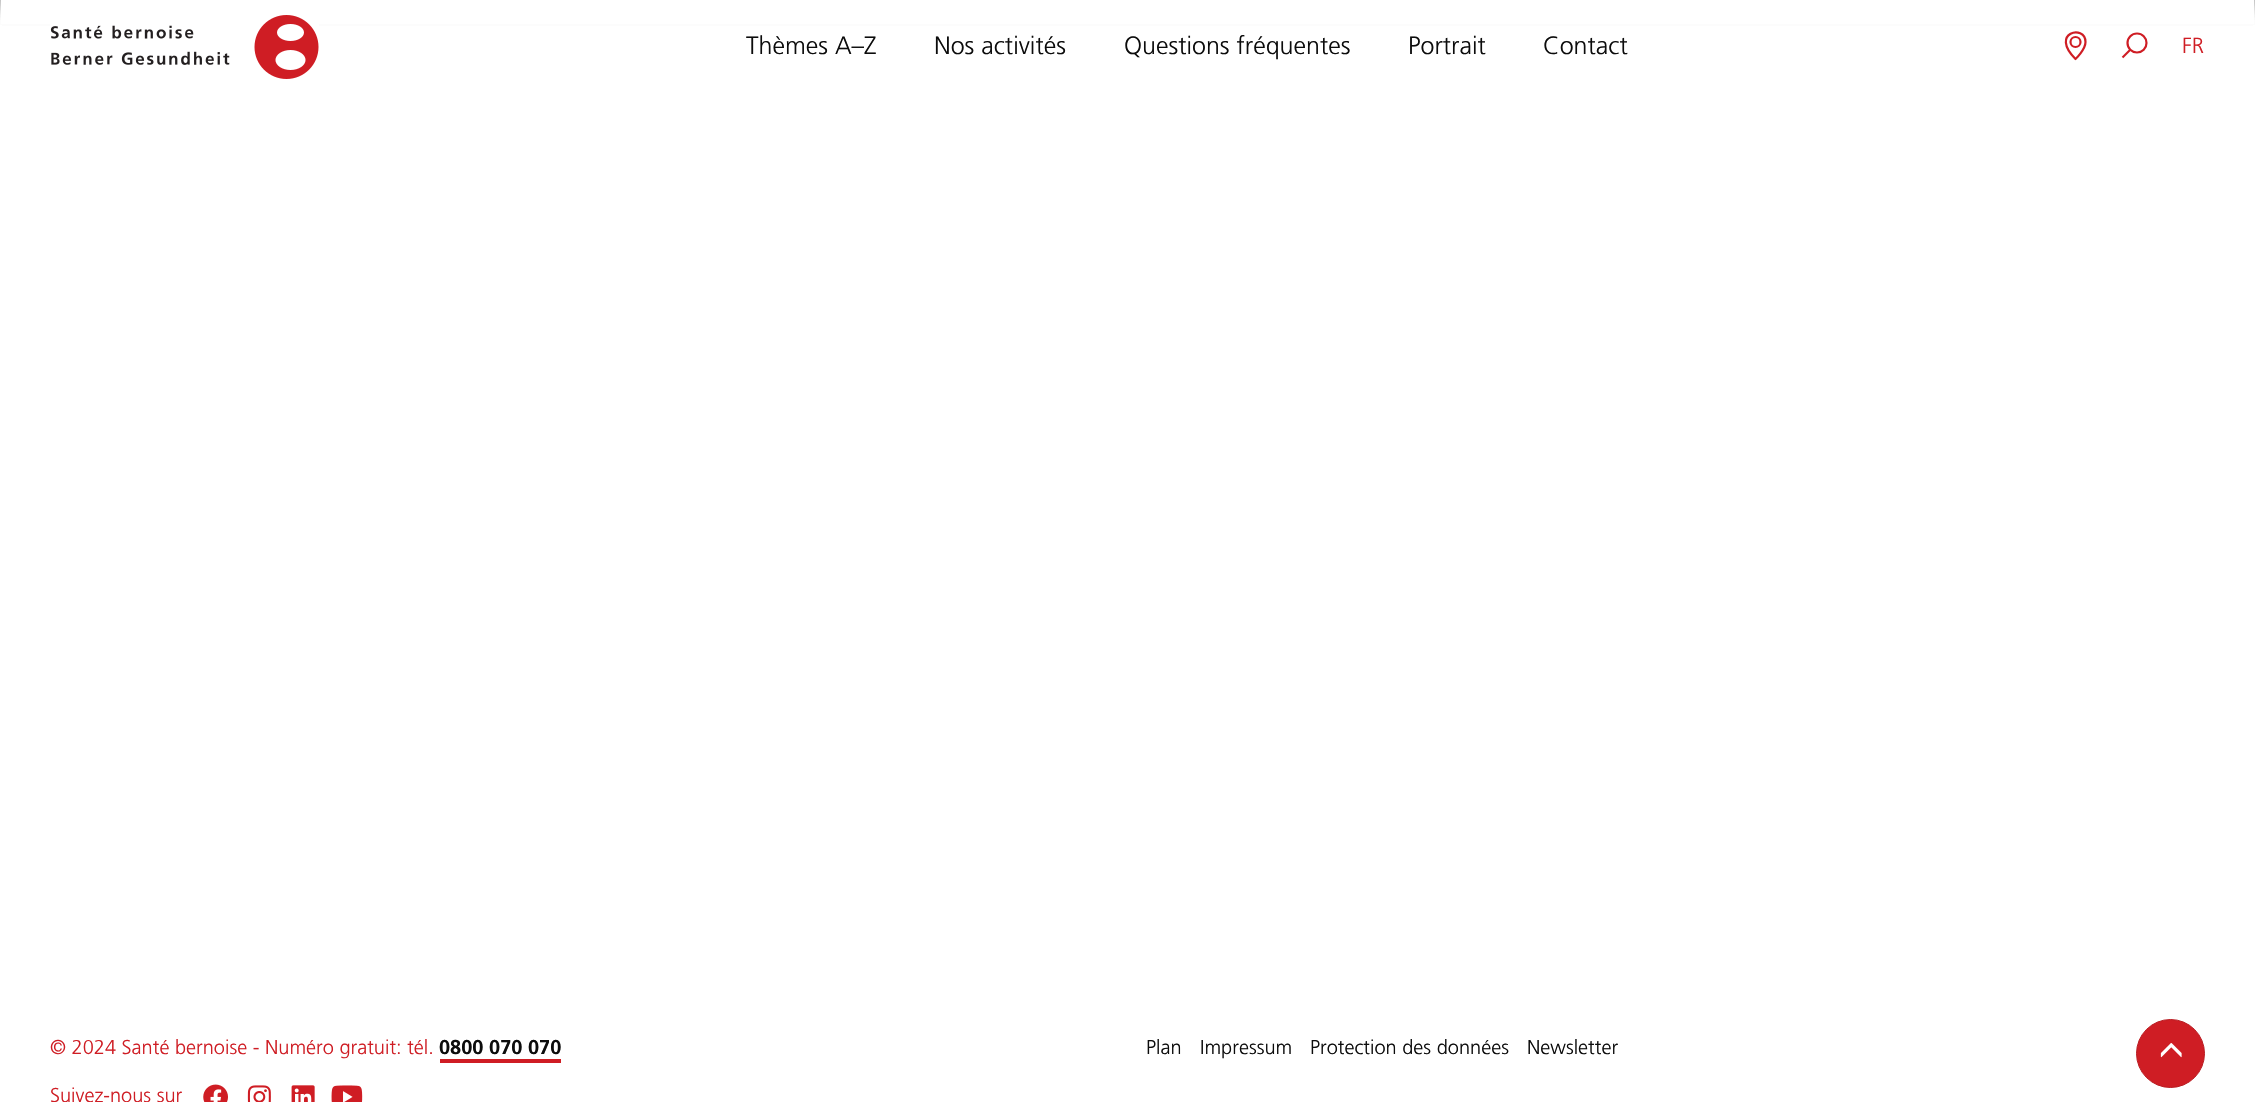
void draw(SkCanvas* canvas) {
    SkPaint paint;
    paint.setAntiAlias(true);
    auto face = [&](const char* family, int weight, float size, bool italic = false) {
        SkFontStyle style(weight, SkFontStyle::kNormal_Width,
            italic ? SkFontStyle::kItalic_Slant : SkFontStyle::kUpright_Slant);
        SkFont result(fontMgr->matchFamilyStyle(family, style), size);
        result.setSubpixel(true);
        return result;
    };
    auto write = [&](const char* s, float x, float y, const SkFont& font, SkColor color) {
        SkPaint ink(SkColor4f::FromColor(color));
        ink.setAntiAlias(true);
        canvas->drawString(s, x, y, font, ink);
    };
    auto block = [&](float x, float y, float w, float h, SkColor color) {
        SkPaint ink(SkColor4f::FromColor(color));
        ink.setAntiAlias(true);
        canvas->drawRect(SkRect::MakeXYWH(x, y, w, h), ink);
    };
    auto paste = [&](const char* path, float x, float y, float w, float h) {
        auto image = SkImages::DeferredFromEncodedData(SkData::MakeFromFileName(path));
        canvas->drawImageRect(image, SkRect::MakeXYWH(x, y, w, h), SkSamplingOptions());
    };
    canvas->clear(SK_ColorWHITE);
    paint.setColor(SkColorSetARGB(46, 0, 0, 0));
    paint.setMaskFilter(SkMaskFilter::MakeBlur(kNormal_SkBlurStyle, 7.5f));
    canvas->drawRect(SkRect::MakeXYWH(0, -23, 2255, 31), paint);
    paint.setMaskFilter(nullptr);
    paint.setMaskFilter(SkMaskFilter::MakeBlur(kNormal_SkBlurStyle, 7.5f));
    canvas->drawRect(SkRect::MakeXYWH(0, -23, 2255, 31), paint);
    paint.setMaskFilter(nullptr);
    paint.setMaskFilter(SkMaskFilter::MakeBlur(kNormal_SkBlurStyle, 7.5f));
    canvas->drawRect(SkRect::MakeXYWH(0, -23, 2255, 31), paint);
    paint.setMaskFilter(nullptr);
    block(1, 0, 2253, 24, SK_ColorWHITE);
    paste("pic1.png", 50, 15, 269, 64);
    auto kFont1 = face("Frutiger", 300, 25);
    write("Thèmes A–Z", 746, 54, kFont1, SkColorSetRGB(12, 12, 12));
    write("Nos activités", 934, 54, kFont1, SkColorSetRGB(12, 12, 12));
    write("Questions fréquentes", 1124, 54, kFont1, SkColorSetRGB(12, 12, 12));
    write("Portrait", 1408, 54, kFont1, SkColorSetRGB(12, 12, 12));
    write("Contact", 1543, 54, kFont1, SkColorSetRGB(12, 12, 12));
    paint.setStyle(SkPaint::kStroke_Style);
    paint.setStrokeWidth(2.2f);
    paint.setStrokeJoin(SkPaint::kRound_Join);
    paint.setColor(SkColorSetRGB(207, 29, 36));
    canvas->drawPath(SkPathBuilder().moveTo(2085.5f, 42).cubicTo(2085.5f, 24, 2049, 32.5f, 2075.5f, 59).cubicTo(2075.5f, 59, 2085.5f, 49.5f, 2085.5f, 42).close().detach(), paint);
    paint.setStrokeJoin(SkPaint::kMiter_Join);
    canvas->drawCircle(2075.5f, 42, 5, paint);
    paint.setStrokeJoin(SkPaint::kRound_Join);
    canvas->drawPath(SkPathBuilder().moveTo(2130, 50).lineTo(2122.5f, 57.5f).detach(), paint);
    paint.setStrokeJoin(SkPaint::kMiter_Join);
    canvas->drawCircle(2137, 43, 9.5f, paint);
    auto kFont2 = face("Frutiger", 300, 22);
    write("FR", 2182, 53, kFont2, SkColorSetRGB(207, 29, 36));
    auto kFont3 = face("Frutiger", 300, 20);
    write("© 2024 Santé bernoise - Numéro gratuit: tél.", 50, 1054, kFont3, SkColorSetRGB(207, 29, 36));
    auto kFont4 = face("Frutiger", 700, 20);
    write("0800 070 070", 439, 1054, kFont4, SkColorSetRGB(12, 12, 12));
    block(440, 1059, 121, 4, SkColorSetRGB(207, 29, 36));
    write("Suivez-nous sur", 50, 1102, kFont3, SkColorSetRGB(207, 29, 36));
    paste("pic2.png", 203, 1084, 25, 18);
    paste("pic3.png", 247, 1085, 24, 17);
    paste("pic4.png", 291, 1085, 24, 17);
    paste("pic5.png", 331, 1085, 32, 17);
    write("Plan", 1146, 1054, kFont3, SkColorSetRGB(12, 12, 12));
    write("Impressum", 1200, 1054, kFont3, SkColorSetRGB(12, 12, 12));
    write("Protection des données", 1310, 1054, kFont3, SkColorSetRGB(12, 12, 12));
    write("Newsletter", 1527, 1054, kFont3, SkColorSetRGB(12, 12, 12));
    paint.setStyle(SkPaint::kFill_Style);
    canvas->drawCircle(2170.5f, 1053.5f, 34, paint);
    paint.setStyle(SkPaint::kStroke_Style);
    paint.setStrokeWidth(1);
    paint.setColor(SkColorSetRGB(185, 26, 32));
    canvas->drawCircle(2170.5f, 1053.5f, 34, paint);
    paste("pic6.png", 2160, 1043, 22, 15);
}
